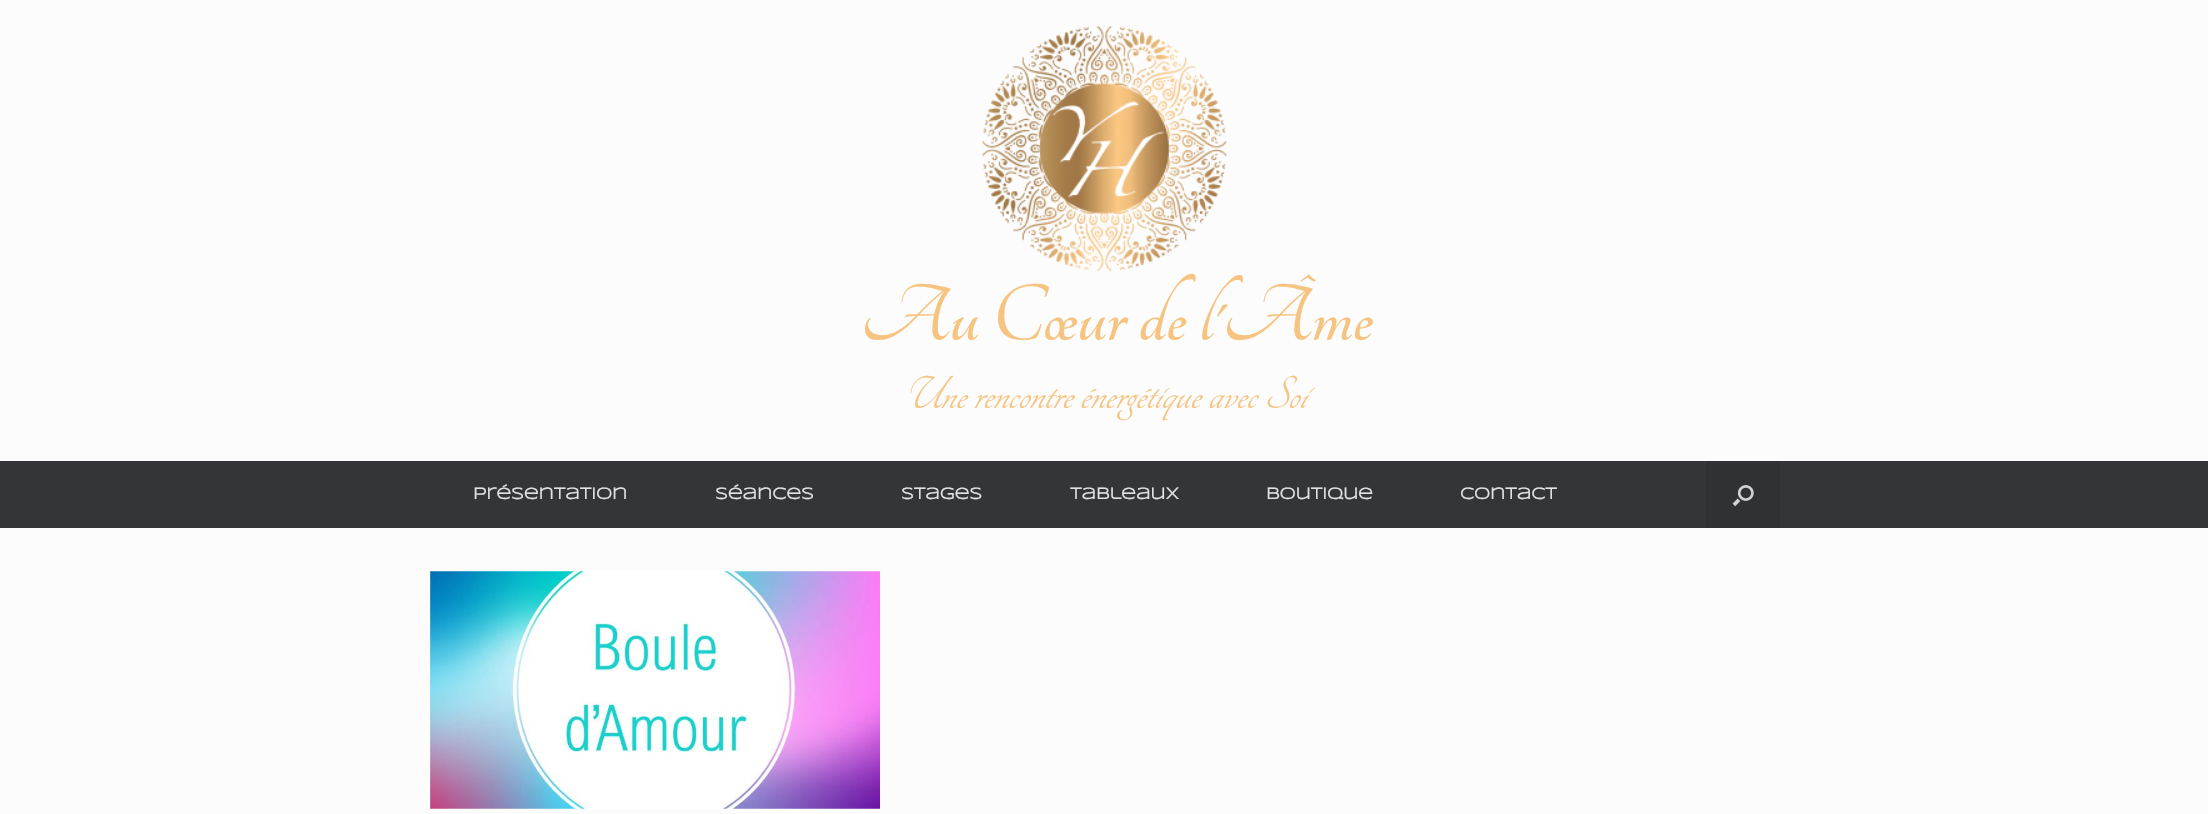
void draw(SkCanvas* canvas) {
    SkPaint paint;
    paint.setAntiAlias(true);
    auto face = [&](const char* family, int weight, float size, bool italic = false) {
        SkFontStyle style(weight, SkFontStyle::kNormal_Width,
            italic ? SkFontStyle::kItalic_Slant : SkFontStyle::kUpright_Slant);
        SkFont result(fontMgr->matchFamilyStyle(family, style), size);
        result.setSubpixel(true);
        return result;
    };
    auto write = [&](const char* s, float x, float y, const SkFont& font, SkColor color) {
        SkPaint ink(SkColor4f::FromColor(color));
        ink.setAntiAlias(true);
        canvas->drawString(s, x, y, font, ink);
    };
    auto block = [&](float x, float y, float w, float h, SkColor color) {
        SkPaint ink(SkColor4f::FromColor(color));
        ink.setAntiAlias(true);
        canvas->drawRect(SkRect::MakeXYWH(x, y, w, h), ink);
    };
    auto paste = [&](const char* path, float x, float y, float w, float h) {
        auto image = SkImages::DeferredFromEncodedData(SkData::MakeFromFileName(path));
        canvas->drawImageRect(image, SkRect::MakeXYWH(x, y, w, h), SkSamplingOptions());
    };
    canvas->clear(SkColorSetRGB(252, 252, 252));
    paste("pic1.png", 982, 26, 245, 246);
    auto kFont1 = face("Tangerine", 700, 87.5f);
    write("Au Cœur de l'Âme", 861, 340, kFont1, SkColorSetRGB(246, 196, 128));
    auto kFont2 = face("Tangerine", 400, 50, true);
    write("Une rencontre énergétique avec Soi", 903, 408, kFont2, SkColorSetRGB(246, 196, 128));
    block(0, 461, 2208, 67, SkColorSetRGB(52, 53, 56));
    auto kFont3 = face("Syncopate", 700, 16.25f);
    write("Présentation", 473, 499, kFont3, SkColorSetRGB(226, 226, 226));
    write("Séances", 715, 499, kFont3, SkColorSetRGB(226, 226, 226));
    write("Stages", 901, 499, kFont3, SkColorSetRGB(226, 226, 226));
    write("Tableaux", 1070, 499, kFont3, SkColorSetRGB(226, 226, 226));
    write("Boutique", 1266, 499, kFont3, SkColorSetRGB(226, 226, 226));
    write("Contact", 1460, 499, kFont3, SkColorSetRGB(226, 226, 226));
    block(1706, 461, 74, 67, SkColorSetRGB(48, 49, 52));
    paste("pic2.png", 1732, 485, 22, 22);
    paste("pic3.png", 430, 571, 450, 238);
}
